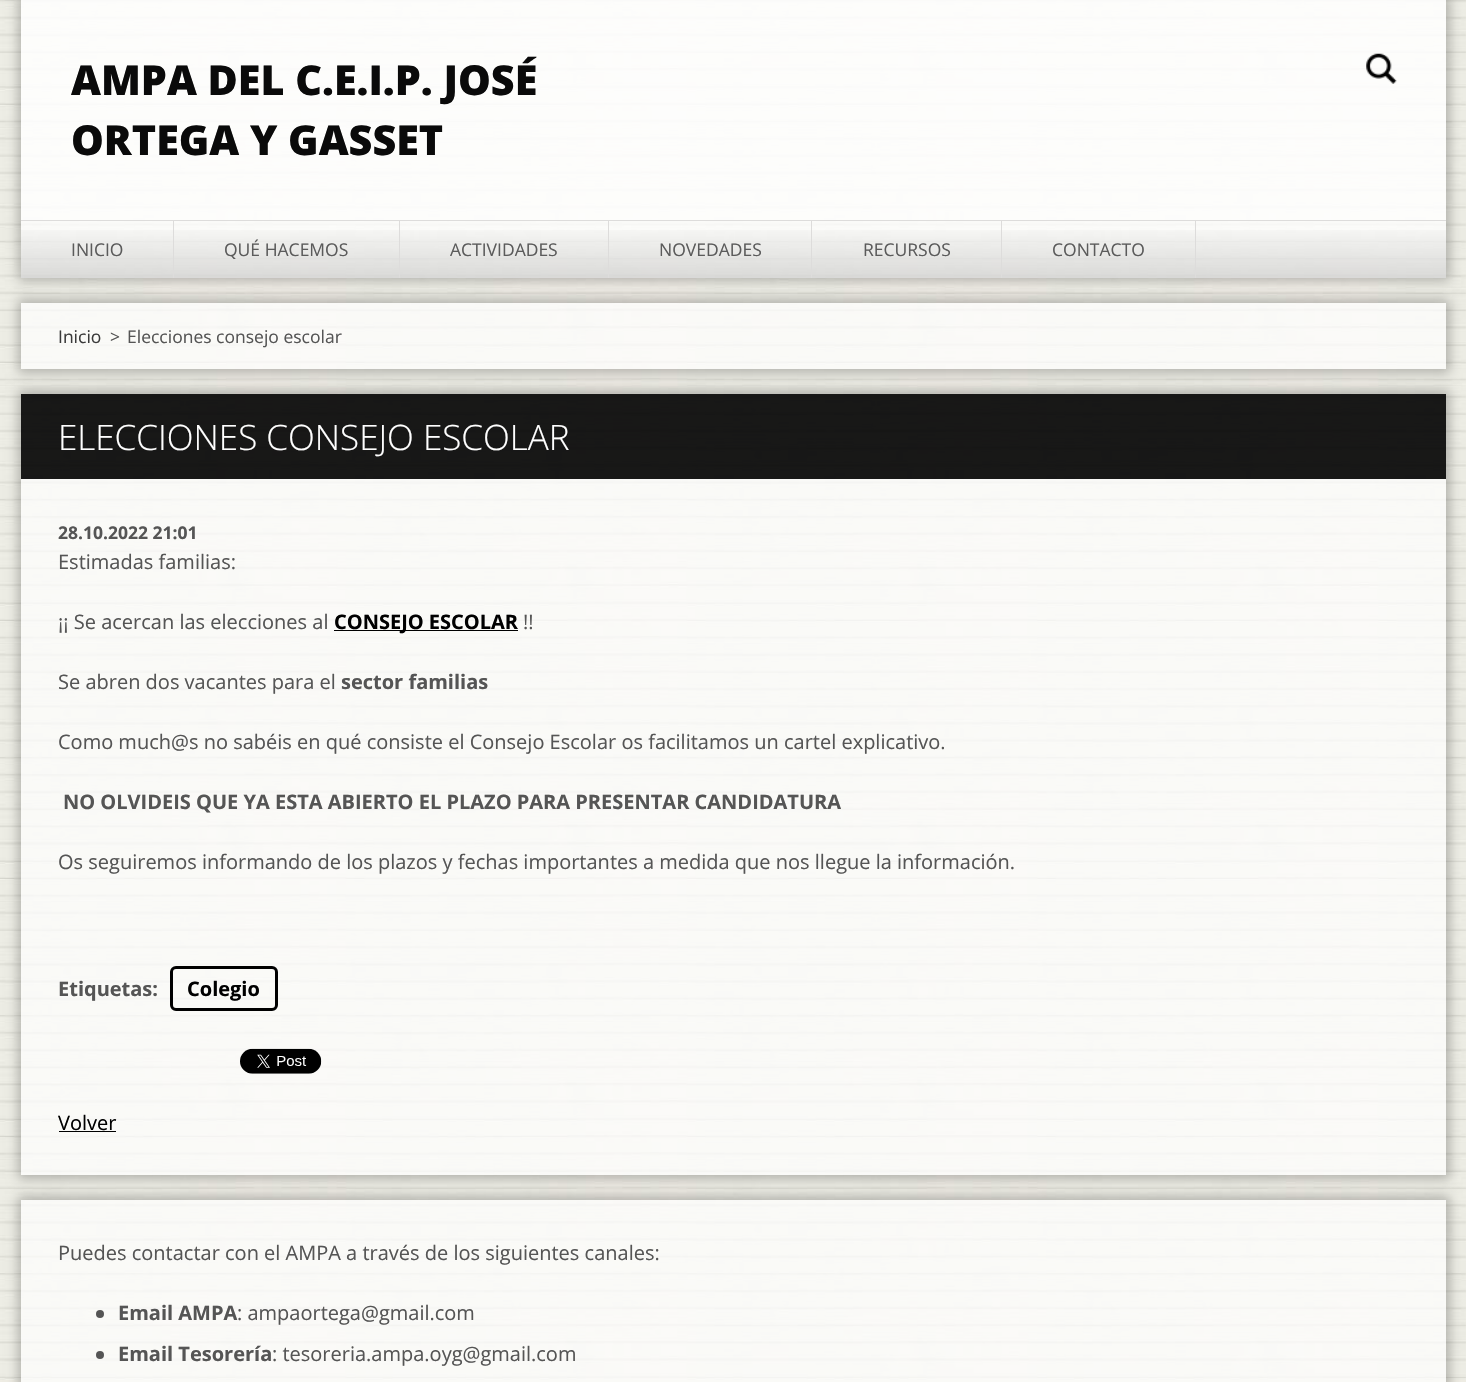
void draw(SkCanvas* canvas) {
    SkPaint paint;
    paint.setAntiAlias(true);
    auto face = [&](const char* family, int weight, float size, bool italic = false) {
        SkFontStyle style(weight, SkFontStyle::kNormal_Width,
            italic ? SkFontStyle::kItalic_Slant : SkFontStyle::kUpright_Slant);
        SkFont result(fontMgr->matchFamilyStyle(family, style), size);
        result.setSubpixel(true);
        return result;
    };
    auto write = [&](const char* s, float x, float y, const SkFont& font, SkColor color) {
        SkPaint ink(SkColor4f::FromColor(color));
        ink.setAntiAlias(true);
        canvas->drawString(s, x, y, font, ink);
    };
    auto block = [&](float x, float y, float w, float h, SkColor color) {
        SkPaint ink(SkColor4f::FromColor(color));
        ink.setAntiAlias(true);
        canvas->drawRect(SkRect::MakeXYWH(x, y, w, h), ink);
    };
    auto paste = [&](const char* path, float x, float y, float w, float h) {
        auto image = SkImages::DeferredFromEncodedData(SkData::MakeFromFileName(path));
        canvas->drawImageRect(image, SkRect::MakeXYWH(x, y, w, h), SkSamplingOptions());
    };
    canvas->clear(SkColorSetRGB(239, 237, 228));
    paste("pic1.png", 0, 0, 1466, 1380);
    canvas->save();
    canvas->clipPath(SkPathBuilder(SkPathFillType::kEvenOdd).moveTo(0, 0).lineTo(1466, 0).lineTo(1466, 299).lineTo(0, 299).close().moveTo(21, 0).lineTo(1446, 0).lineTo(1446, 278).lineTo(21, 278).close().detach(), true);
    paint.setColor(SkColorSetARGB(64, 0, 0, 0));
    paint.setMaskFilter(SkMaskFilter::MakeBlur(kNormal_SkBlurStyle, 5.5f));
    canvas->drawRect(SkRect::MakeXYWH(18, -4, 1432, 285), paint);
    paint.setMaskFilter(nullptr);
    canvas->restore();
    block(21, 0, 1425, 220, SkColorSetARGB(217, 255, 255, 255));
    auto kFont1 = face("Open Sans", 800, 41.25f);
    write("AMPA DEL C.E.I.P. JOSÉ", 71, 95, kFont1, SkColorSetRGB(10, 10, 10));
    write("ORTEGA Y GASSET", 71, 155, kFont1, SkColorSetRGB(10, 10, 10));
    paste("pic2.png", 1366, 53, 31, 31);
    block(21, 220, 1425, 1, SkColorSetRGB(221, 220, 219));
    block(21, 221, 1425, 57, SkColorSetARGB(191, 255, 255, 255));
    {
        const SkColor colors[] = {SkColorSetARGB(0, 0, 0, 0), SkColorSetARGB(33, 0, 0, 0)};
        const float stops[] = {0, 1};
        const SkPoint ends[] = {{734, 221}, {734, 278}};
        paint.setShader(SkGradientShader::MakeLinear(ends, colors, stops, 2, SkTileMode::kClamp));
        paint.setAlpha(255);
    }
    canvas->drawRect(SkRect::MakeXYWH(21, 230, 1425, 48), paint);
    block(173, 221, 1, 57, SkColorSetRGB(221, 220, 219));
    auto kFont2 = face("Open Sans", 400, 17.5f);
    write("INICIO", 71, 256, kFont2, SkColorSetRGB(91, 91, 91));
    block(399, 221, 1, 57, SkColorSetRGB(221, 220, 219));
    write("QUÉ HACEMOS", 224, 256, kFont2, SkColorSetRGB(91, 91, 91));
    block(608, 221, 1, 57, SkColorSetRGB(221, 220, 219));
    write("ACTIVIDADES", 450, 256, kFont2, SkColorSetRGB(91, 91, 91));
    block(811, 221, 1, 57, SkColorSetRGB(221, 220, 219));
    write("NOVEDADES", 659, 256, kFont2, SkColorSetRGB(91, 91, 91));
    block(1001, 221, 1, 57, SkColorSetRGB(221, 220, 219));
    write("RECURSOS", 863, 256, kFont2, SkColorSetRGB(91, 91, 91));
    block(1195, 221, 1, 57, SkColorSetRGB(221, 220, 219));
    write("CONTACTO", 1052, 256, kFont2, SkColorSetRGB(91, 91, 91));
    canvas->save();
    canvas->clipPath(SkPathBuilder(SkPathFillType::kEvenOdd).moveTo(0, 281).lineTo(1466, 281).lineTo(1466, 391).lineTo(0, 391).close().moveTo(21, 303).lineTo(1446, 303).lineTo(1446, 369).lineTo(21, 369).close().detach(), true);
    paint.setShader(nullptr);
    paint.setColor(SkColorSetARGB(64, 0, 0, 0));
    paint.setMaskFilter(SkMaskFilter::MakeBlur(kNormal_SkBlurStyle, 5.5f));
    canvas->drawRect(SkRect::MakeXYWH(18, 299, 1432, 74), paint);
    paint.setMaskFilter(nullptr);
    canvas->restore();
    block(21, 303, 1425, 66, SkColorSetARGB(179, 255, 255, 255));
    write("Inicio", 58, 343, kFont2, SkColorSetRGB(58, 58, 58));
    write(">", 110, 343, kFont2, SkColorSetRGB(85, 85, 85));
    write("Elecciones consejo escolar", 127, 343, kFont2, SkColorSetRGB(85, 85, 85));
    canvas->save();
    canvas->clipPath(SkPathBuilder(SkPathFillType::kEvenOdd).moveTo(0, 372).lineTo(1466, 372).lineTo(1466, 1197).lineTo(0, 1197).close().moveTo(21, 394).lineTo(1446, 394).lineTo(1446, 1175).lineTo(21, 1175).close().detach(), true);
    paint.setMaskFilter(SkMaskFilter::MakeBlur(kNormal_SkBlurStyle, 5.5f));
    canvas->drawRect(SkRect::MakeXYWH(18, 390, 1432, 789), paint);
    paint.setMaskFilter(nullptr);
    canvas->restore();
    block(21, 394, 1425, 85, SkColorSetARGB(230, 0, 0, 0));
    auto kFont3 = face("Open Sans", 300, 35);
    write("ELECCIONES CONSEJO ESCOLAR", 58, 450, kFont3, SK_ColorWHITE);
    block(21, 479, 1425, 487, SkColorSetARGB(179, 255, 255, 255));
    auto kFont4 = face("Open Sans", 700, 17.5f);
    write("28.10.2022 21:01", 58, 539, kFont4, SkColorSetRGB(85, 85, 85));
    auto kFont5 = face("Open Sans", 400, 20);
    write("Estimadas familias:", 58, 569, kFont5, SkColorSetRGB(85, 85, 85));
    write("¡¡ Se acercan las elecciones al", 58, 629, kFont5, SkColorSetRGB(85, 85, 85));
    block(334, 630, 184, 1, SK_ColorBLACK);
    auto kFont6 = face("Open Sans", 700, 20);
    write("CONSEJO ESCOLAR", 334, 629, kFont6, SK_ColorBLACK);
    write("!!", 523, 629, kFont5, SkColorSetRGB(85, 85, 85));
    write("Se abren dos vacantes para el", 58, 689, kFont5, SkColorSetRGB(85, 85, 85));
    write("sector familias", 341, 689, kFont6, SkColorSetRGB(85, 85, 85));
    write("Como much@s no sabéis en qué consiste el Consejo Escolar os facilitamos un cartel explicativo.", 58, 749, kFont5, SkColorSetRGB(85, 85, 85));
    write("NO OLVIDEIS QUE YA ESTA ABIERTO EL PLAZO PARA PRESENTAR CANDIDATURA", 63, 809, kFont6, SkColorSetRGB(85, 85, 85));
    write("Os seguiremos informando de los plazos y fechas importantes a medida que nos llegue la información.", 58, 869, kFont5, SkColorSetRGB(85, 85, 85));
    block(21, 966, 1425, 209, SkColorSetARGB(179, 255, 255, 255));
    write("Etiquetas:", 58, 996, kFont6, SkColorSetRGB(85, 85, 85));
    paint.setStyle(SkPaint::kStroke_Style);
    paint.setStrokeWidth(3);
    paint.setColor(SK_ColorBLACK);
    canvas->drawRoundRect(SkRect::MakeXYWH(171.5f, 967.5f, 105, 42), 4.5f, 4.5f, paint);
    write("Colegio", 187, 996, kFont6, SK_ColorBLACK);
    paste("pic3.png", 240, 1048, 82, 26);
    write("Volver", 58, 1130, kFont5, SK_ColorBLACK);
    block(59, 1131, 57, 1, SK_ColorBLACK);
    canvas->save();
    canvas->clipPath(SkPathBuilder(SkPathFillType::kEvenOdd).moveTo(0, 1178).lineTo(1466, 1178).lineTo(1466, 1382).lineTo(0, 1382).close().moveTo(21, 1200).lineTo(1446, 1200).lineTo(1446, 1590).lineTo(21, 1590).close().detach(), true);
    paint.setStyle(SkPaint::kFill_Style);
    paint.setColor(SkColorSetARGB(64, 0, 0, 0));
    paint.setMaskFilter(SkMaskFilter::MakeBlur(kNormal_SkBlurStyle, 5.5f));
    canvas->drawRect(SkRect::MakeXYWH(18, 1196, 1432, 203), paint);
    paint.setMaskFilter(nullptr);
    canvas->restore();
    block(21, 1200, 1425, 182, SkColorSetARGB(179, 255, 255, 255));
    write("Puedes contactar con el AMPA a través de los siguientes canales:", 58, 1260, kFont5, SkColorSetRGB(85, 85, 85));
    paint.setColor(SkColorSetRGB(85, 85, 85));
    canvas->drawCircle(100, 1314, 4, paint);
    write("Email AMPA", 118, 1320, kFont6, SkColorSetRGB(85, 85, 85));
    write(": ampaortega@gmail.com", 237, 1320, kFont5, SkColorSetRGB(85, 85, 85));
    canvas->drawCircle(100, 1355, 4, paint);
    write("Email Tesorería", 118, 1361, kFont6, SkColorSetRGB(85, 85, 85));
    write(": tesoreria.ampa.oyg@gmail.com", 272, 1361, kFont5, SkColorSetRGB(85, 85, 85));
}
